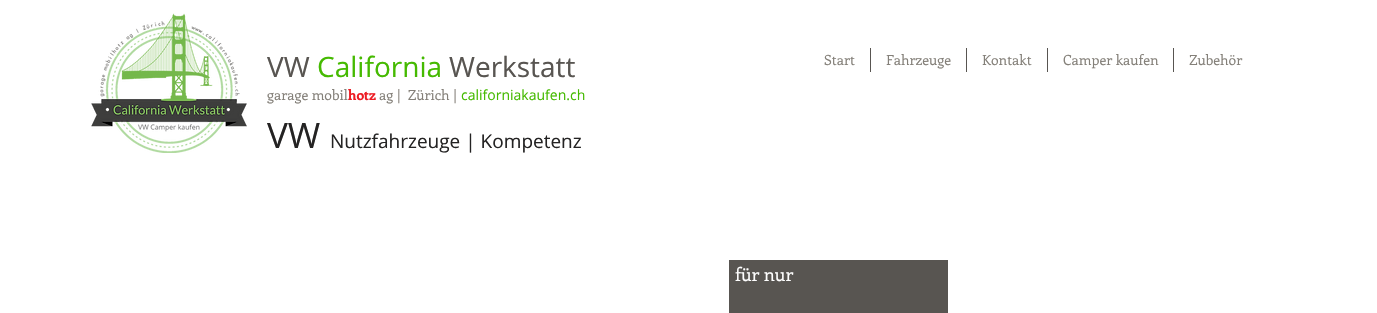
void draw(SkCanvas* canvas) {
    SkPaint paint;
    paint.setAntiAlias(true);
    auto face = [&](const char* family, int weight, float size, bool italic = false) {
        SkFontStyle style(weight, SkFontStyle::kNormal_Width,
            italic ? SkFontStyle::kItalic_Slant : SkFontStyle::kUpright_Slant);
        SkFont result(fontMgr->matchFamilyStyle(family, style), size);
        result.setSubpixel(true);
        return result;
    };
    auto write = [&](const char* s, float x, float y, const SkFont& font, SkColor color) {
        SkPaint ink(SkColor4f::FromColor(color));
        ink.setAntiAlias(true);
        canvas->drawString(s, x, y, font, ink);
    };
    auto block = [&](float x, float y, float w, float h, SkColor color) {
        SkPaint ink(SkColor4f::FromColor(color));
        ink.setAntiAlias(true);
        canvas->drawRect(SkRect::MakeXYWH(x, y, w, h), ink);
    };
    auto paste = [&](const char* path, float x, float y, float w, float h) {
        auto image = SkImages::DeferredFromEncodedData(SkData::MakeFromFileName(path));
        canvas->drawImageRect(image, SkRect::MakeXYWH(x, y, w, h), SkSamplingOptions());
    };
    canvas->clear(SK_ColorWHITE);
    paste("pic1.png", 91, 13, 156, 140);
    auto kFont1 = face("Open Sans", 400, 28);
    write("VW", 267, 77, kFont1, SkColorSetRGB(88, 85, 81));
    write("California", 317, 77, kFont1, SkColorSetRGB(69, 186, 1));
    write("Werkstatt", 449, 77, kFont1, SkColorSetRGB(88, 85, 81));
    auto kFont2 = face("Enriqueta", 400, 14);
    write("garage mobil", 267, 100, kFont2, SkColorSetRGB(132, 128, 121));
    auto kFont3 = face("Enriqueta", 700, 14);
    write("hotz", 348, 100, kFont3, SkColorSetRGB(237, 28, 36));
    write("ag |  Zürich |", 379, 100, kFont2, SkColorSetRGB(132, 128, 121));
    auto kFont4 = face("Open Sans", 400, 14);
    write("californiakaufen.ch", 461, 100, kFont4, SkColorSetRGB(69, 186, 1));
    auto kFont5 = face("Open Sans", 400, 35);
    write("VW", 267, 148, kFont5, SkColorSetRGB(36, 35, 35));
    auto kFont6 = face("Open Sans", 400, 19);
    write("Nutzfahrzeuge | Kompetenz", 330, 148, kFont6, SkColorSetRGB(36, 35, 35));
    write("Start", 824, 65, kFont2, SkColorSetRGB(132, 128, 121));
    block(870, 48, 1, 24, SkColorSetRGB(88, 85, 81));
    write("Fahrzeuge", 886, 65, kFont2, SkColorSetRGB(132, 128, 121));
    block(966, 48, 1, 24, SkColorSetRGB(88, 85, 81));
    write("Kontakt", 982, 65, kFont2, SkColorSetRGB(132, 128, 121));
    block(1047, 48, 1, 24, SkColorSetRGB(88, 85, 81));
    write("Camper kaufen", 1063, 65, kFont2, SkColorSetRGB(132, 128, 121));
    block(1173, 48, 1, 24, SkColorSetRGB(88, 85, 81));
    write("Zubehör", 1189, 65, kFont2, SkColorSetRGB(132, 128, 121));
    block(729, 260, 219, 53, SkColorSetRGB(88, 85, 81));
    auto kFont7 = face("Enriqueta", 400, 18);
    write("für nur", 735, 281, kFont7, SK_ColorWHITE);
}
